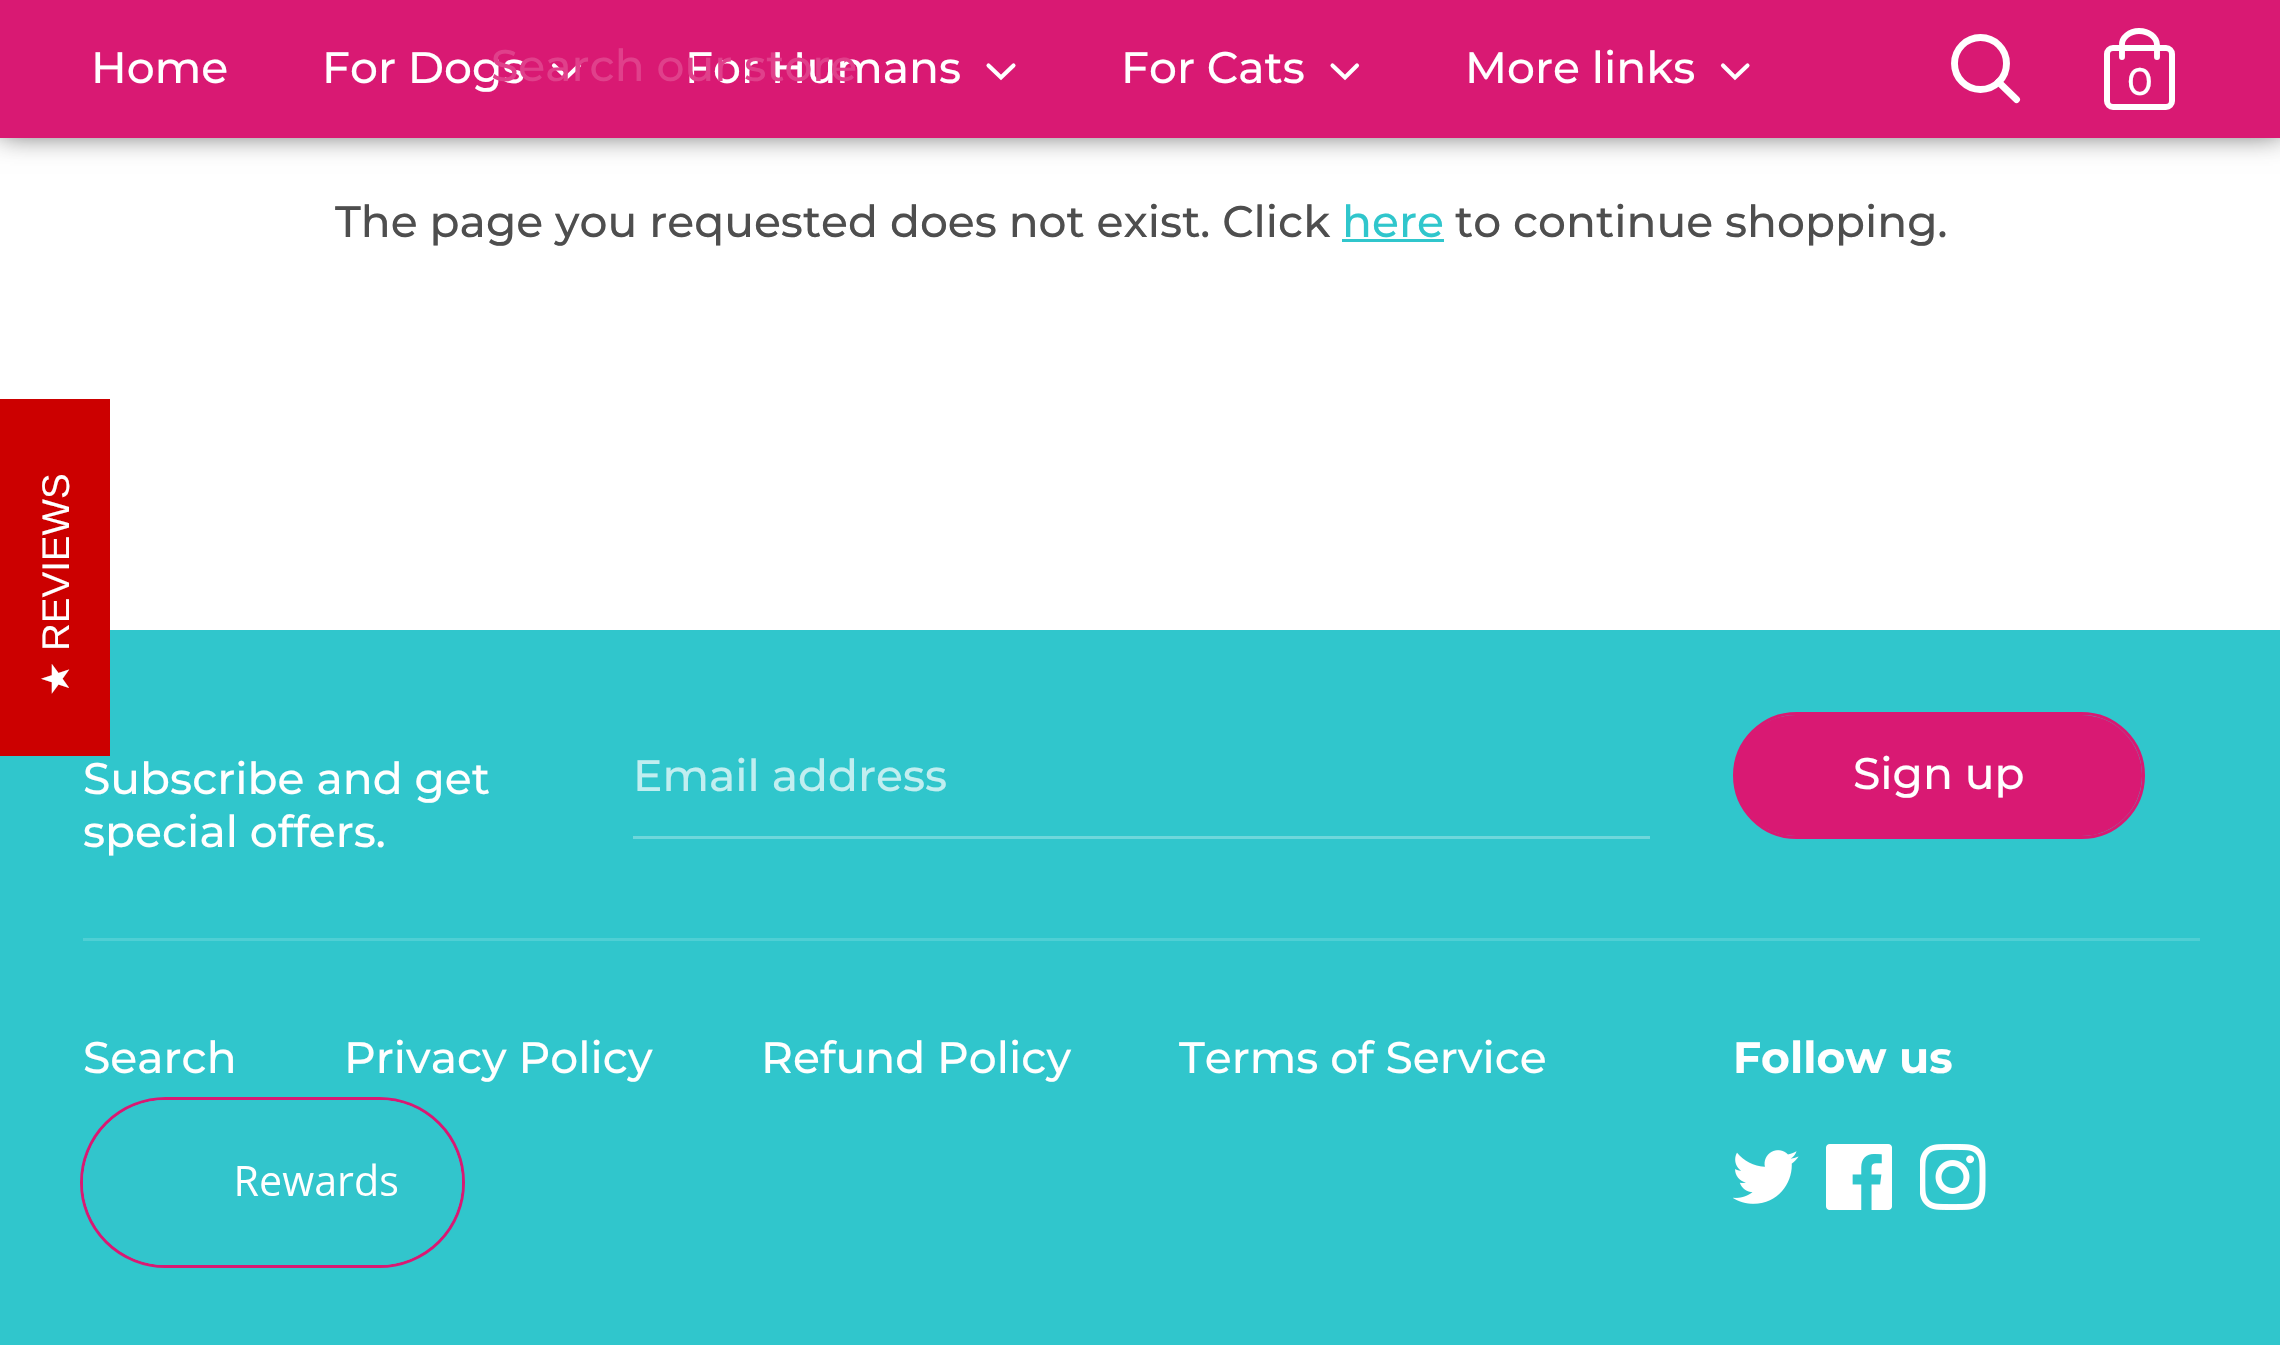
void draw(SkCanvas* canvas) {
    SkPaint paint;
    paint.setAntiAlias(true);
    auto face = [&](const char* family, int weight, float size, bool italic = false) {
        SkFontStyle style(weight, SkFontStyle::kNormal_Width,
            italic ? SkFontStyle::kItalic_Slant : SkFontStyle::kUpright_Slant);
        SkFont result(fontMgr->matchFamilyStyle(family, style), size);
        result.setSubpixel(true);
        return result;
    };
    auto write = [&](const char* s, float x, float y, const SkFont& font, SkColor color) {
        SkPaint ink(SkColor4f::FromColor(color));
        ink.setAntiAlias(true);
        canvas->drawString(s, x, y, font, ink);
    };
    auto block = [&](float x, float y, float w, float h, SkColor color) {
        SkPaint ink(SkColor4f::FromColor(color));
        ink.setAntiAlias(true);
        canvas->drawRect(SkRect::MakeXYWH(x, y, w, h), ink);
    };
    auto card = [&](float x, float y, float w, float h, float radius, SkColor color) {
        SkPaint ink(SkColor4f::FromColor(color));
        ink.setAntiAlias(true);
        canvas->drawRoundRect(SkRect::MakeXYWH(x, y, w, h), radius, radius, ink);
    };
    auto paste = [&](const char* path, float x, float y, float w, float h) {
        auto image = SkImages::DeferredFromEncodedData(SkData::MakeFromFileName(path));
        canvas->drawImageRect(image, SkRect::MakeXYWH(x, y, w, h), SkSamplingOptions());
    };
    canvas->clear(SK_ColorWHITE);
    paint.setColor(SkColorSetARGB(191, 0, 0, 0));
    paint.setMaskFilter(SkMaskFilter::MakeBlur(kNormal_SkBlurStyle, 14));
    canvas->drawRect(SkRect::MakeXYWH(0, -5, 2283, 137), paint);
    paint.setMaskFilter(nullptr);
    block(0, 0, 2280, 138, SkColorSetRGB(217, 25, 115));
    auto kFont1 = face("Montserrat", 100, 44);
    write("For Dogs", 322, 83, kFont1, SK_ColorWHITE);
    paint.setStyle(SkPaint::kStroke_Style);
    paint.setStrokeWidth(4.1f);
    paint.setStrokeCap(SkPaint::kRound_Cap);
    paint.setColor(SK_ColorWHITE);
    canvas->drawPath(SkPathBuilder().moveTo(554, 65.5f).lineTo(566.5f, 77.5f).lineTo(579, 65.5f).detach(), paint);
    write("For Humans", 685, 83, kFont1, SK_ColorWHITE);
    write("Search our store", 491, 81, kFont1, SkColorSetRGB(224, 64, 139));
    paint.setStrokeWidth(6.9f);
    paint.setStrokeCap(SkPaint::kButt_Cap);
    canvas->drawCircle(1980.5f, 63.5f, 26, paint);
    paint.setStrokeCap(SkPaint::kRound_Cap);
    canvas->drawPath(SkPathBuilder().moveTo(2016.5f, 99.5f).lineTo(1998.5f, 82).detach(), paint);
    paint.setStrokeWidth(6);
    paint.setStrokeCap(SkPaint::kButt_Cap);
    canvas->drawRoundRect(SkRect::MakeXYWH(2107, 48, 65, 59), 6, 6, paint);
    paint.setStrokeWidth(5.9f);
    paint.setStrokeCap(SkPaint::kRound_Cap);
    canvas->drawPath(SkPathBuilder().moveTo(2122, 57).lineTo(2122, 45).cubicTo(2121.5f, 37.5f, 2129.5f, 31, 2139, 31).cubicTo(2149, 31, 2157, 37.5f, 2157, 45).lineTo(2157, 57).detach(), paint);
    auto kFont2 = face("Montserrat", 100, 38.5f);
    write("0", 2127, 95, kFont2, SK_ColorWHITE);
    write("Home", 91, 83, kFont1, SK_ColorWHITE);
    paint.setStrokeWidth(4.1f);
    canvas->drawPath(SkPathBuilder().moveTo(988.5f, 65.5f).lineTo(1001, 77.5f).lineTo(1013.5f, 65.5f).detach(), paint);
    write("For Cats", 1121, 83, kFont1, SK_ColorWHITE);
    canvas->drawPath(SkPathBuilder().moveTo(1332.5f, 65.5f).lineTo(1345, 77.5f).lineTo(1357, 65.5f).detach(), paint);
    write("More links", 1465, 83, kFont1, SK_ColorWHITE);
    canvas->drawPath(SkPathBuilder().moveTo(1723, 65.5f).lineTo(1735, 77.5f).lineTo(1747.5f, 65.5f).detach(), paint);
    write("The page you requested does not exist. Click", 335, 237, kFont1, SkColorSetRGB(78, 78, 78));
    write("here", 1342, 237, kFont1, SkColorSetRGB(48, 198, 204));
    block(1342, 239, 102, 3, SkColorSetRGB(48, 198, 204));
    write("to continue shopping.", 1455, 237, kFont1, SkColorSetRGB(78, 78, 78));
    block(0, 630, 2280, 715, SkColorSetRGB(48, 198, 204));
    block(0, 399, 110, 357, SkColorSetRGB(204, 0, 0));
    auto kFont3 = face("Liberation Sans", 400, 38.5f);
    canvas->save();
    canvas->rotate(-90, 69, 651);
    write("REVIEWS", 69, 651, kFont3, SK_ColorWHITE);
    canvas->restore();
    auto kFont4 = face("DejaVu Sans", 400, 38.5f);
    canvas->save();
    canvas->rotate(-90, 69, 696);
    write("★", 69, 696, kFont4, SK_ColorWHITE);
    canvas->restore();
    write("Subscribe and get", 83, 794, kFont1, SK_ColorWHITE);
    write("special offers.", 83, 847, kFont1, SK_ColorWHITE);
    block(633, 836, 1017, 3, SkColorSetRGB(110, 215, 219));
    write("Email address", 633, 791, kFont1, SkColorSetRGB(193, 238, 240));
    paint.setStrokeWidth(3);
    paint.setStrokeCap(SkPaint::kButt_Cap);
    paint.setColor(SkColorSetRGB(217, 25, 115));
    canvas->drawRoundRect(SkRect::MakeXYWH(1734.5f, 713.5f, 409, 124), 62, 62, paint);
    card(1735, 715, 407, 121, 60.5f, SkColorSetRGB(217, 25, 115));
    write("Sign up", 1853, 789, kFont1, SK_ColorWHITE);
    block(83, 938, 2117, 3, SkColorSetRGB(79, 207, 212));
    write("Search", 83, 1073, kFont1, SK_ColorWHITE);
    write("Privacy Policy", 344, 1073, kFont1, SK_ColorWHITE);
    write("Refund Policy", 761, 1073, kFont1, SK_ColorWHITE);
    write("Terms of Service", 1179, 1073, kFont1, SK_ColorWHITE);
    auto kFont5 = face("Montserrat", 700, 44);
    write("Follow us", 1733, 1073, kFont5, SK_ColorWHITE);
    paste("pic1.png", 1733, 1150, 66, 54);
    paste("pic2.png", 1826, 1144, 66, 66);
    paste("pic3.png", 1920, 1144, 66, 66);
    canvas->drawRoundRect(SkRect::MakeXYWH(81.5f, 1098.5f, 382, 168), 84, 84, paint);
    card(83, 1100, 379, 165, 82.5f, SkColorSetRGB(50, 197, 204));
    paste("pic4.png", 237, 1163, 161, 33);
}
